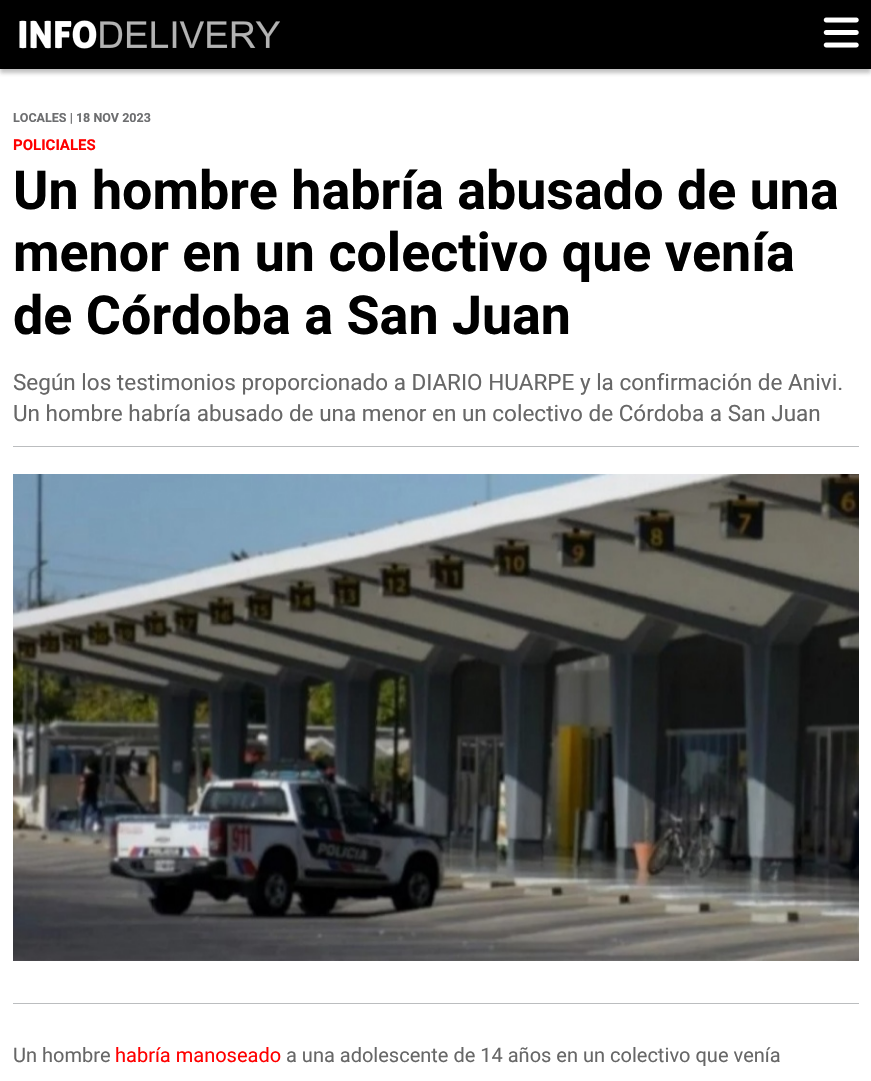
void draw(SkCanvas* canvas) {
    SkPaint paint;
    paint.setAntiAlias(true);
    auto face = [&](const char* family, int weight, float size, bool italic = false) {
        SkFontStyle style(weight, SkFontStyle::kNormal_Width,
            italic ? SkFontStyle::kItalic_Slant : SkFontStyle::kUpright_Slant);
        SkFont result(fontMgr->matchFamilyStyle(family, style), size);
        result.setSubpixel(true);
        return result;
    };
    auto write = [&](const char* s, float x, float y, const SkFont& font, SkColor color) {
        SkPaint ink(SkColor4f::FromColor(color));
        ink.setAntiAlias(true);
        canvas->drawString(s, x, y, font, ink);
    };
    auto block = [&](float x, float y, float w, float h, SkColor color) {
        SkPaint ink(SkColor4f::FromColor(color));
        ink.setAntiAlias(true);
        canvas->drawRect(SkRect::MakeXYWH(x, y, w, h), ink);
    };
    auto paste = [&](const char* path, float x, float y, float w, float h) {
        auto image = SkImages::DeferredFromEncodedData(SkData::MakeFromFileName(path));
        canvas->drawImageRect(image, SkRect::MakeXYWH(x, y, w, h), SkSamplingOptions());
    };
    canvas->clear(SK_ColorWHITE);
    paint.setColor(SkColorSetARGB(77, 50, 50, 50));
    paint.setMaskFilter(SkMaskFilter::MakeBlur(kNormal_SkBlurStyle, 2));
    canvas->drawRect(SkRect::MakeXYWH(0, 4, 871, 69), paint);
    paint.setMaskFilter(nullptr);
    block(0, 0, 871, 69, SK_ColorBLACK);
    paste("pic1.png", 19, 20, 261, 29);
    paste("pic2.png", 823, 17, 36, 31);
    auto kFont1 = face("Heebo", 700, 12.5f);
    write("LOCALES | 18 NOV 2023", 13, 122, kFont1, SkColorSetRGB(109, 110, 112));
    auto kFont2 = face("Heebo", 700, 15);
    write("POLICIALES", 13, 150, kFont2, SkColorSetRGB(255, 0, 0));
    auto kFont3 = face("Heebo", 700, 53.75f);
    write("Un hombre habría abusado de una", 13, 209, kFont3, SK_ColorBLACK);
    write("menor en un colectivo que venía", 13, 271, kFont3, SK_ColorBLACK);
    write("de Córdoba a San Juan", 13, 334, kFont3, SK_ColorBLACK);
    auto kFont4 = face("Heebo", 400, 22.5f);
    write("Según los testimonios proporcionado a DIARIO HUARPE y la confirmación de Anivi.", 13, 390, kFont4, SkColorSetRGB(103, 103, 103));
    write("Un hombre habría abusado de una menor en un colectivo de Córdoba a San Juan", 13, 421, kFont4, SkColorSetRGB(103, 103, 103));
    block(13, 446, 846, 1, SkColorSetRGB(187, 189, 191));
    paste("pic3.png", 13, 474, 846, 487);
    block(13, 1003, 846, 1, SkColorSetRGB(187, 189, 191));
    auto kFont5 = face("Heebo", 400, 20);
    write("Un hombre", 13, 1062, kFont5, SkColorSetRGB(103, 103, 103));
    write("habría manoseado", 115, 1062, kFont5, SkColorSetRGB(255, 0, 0));
    write("a una adolescente de 14 años en un colectivo que venía", 286, 1062, kFont5, SkColorSetRGB(103, 103, 103));
}
